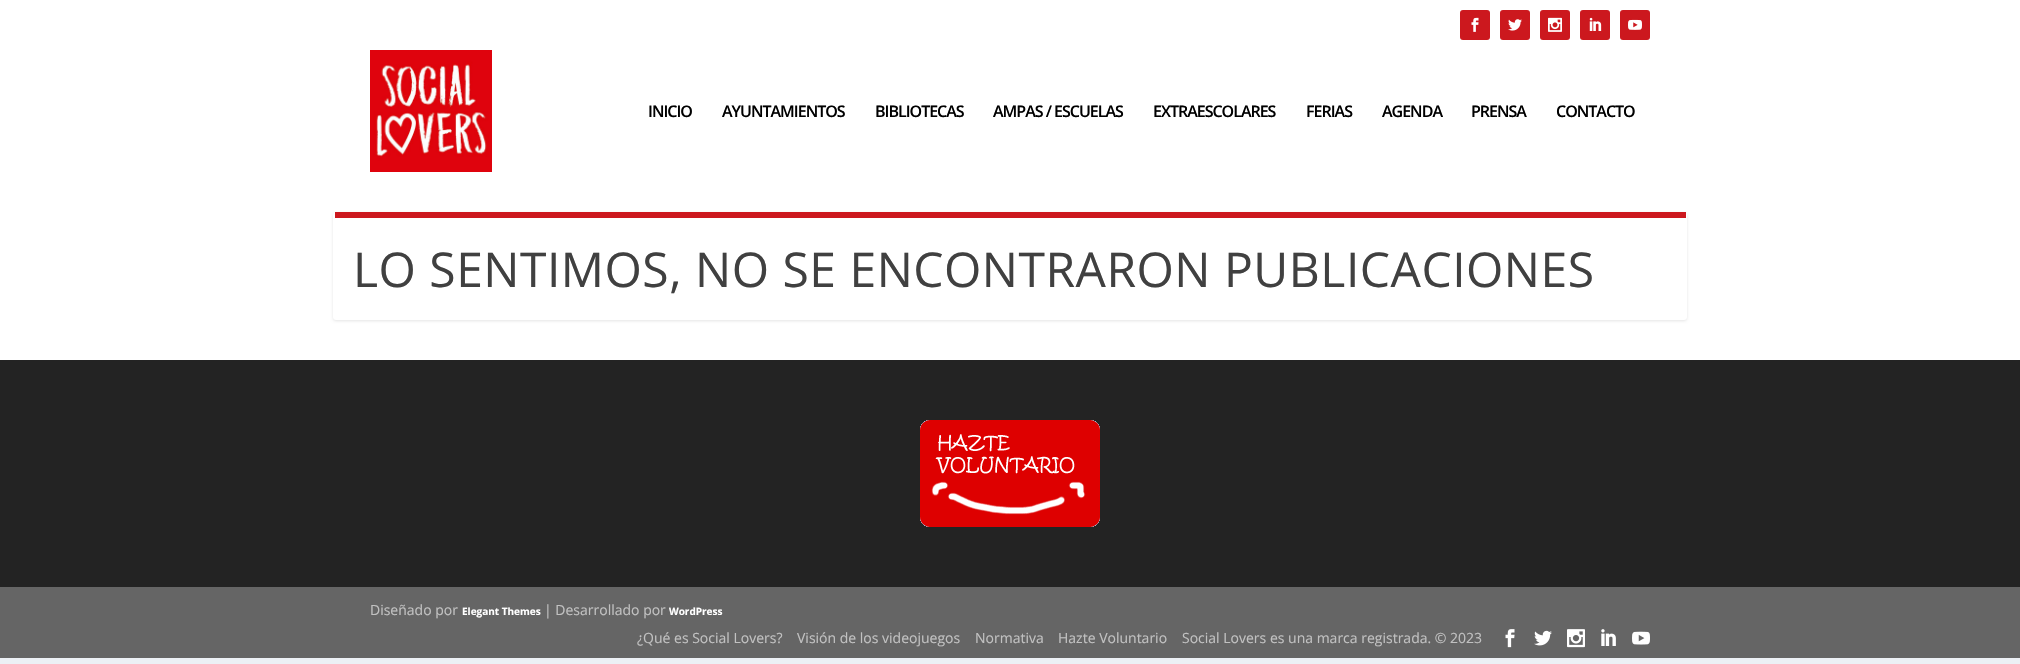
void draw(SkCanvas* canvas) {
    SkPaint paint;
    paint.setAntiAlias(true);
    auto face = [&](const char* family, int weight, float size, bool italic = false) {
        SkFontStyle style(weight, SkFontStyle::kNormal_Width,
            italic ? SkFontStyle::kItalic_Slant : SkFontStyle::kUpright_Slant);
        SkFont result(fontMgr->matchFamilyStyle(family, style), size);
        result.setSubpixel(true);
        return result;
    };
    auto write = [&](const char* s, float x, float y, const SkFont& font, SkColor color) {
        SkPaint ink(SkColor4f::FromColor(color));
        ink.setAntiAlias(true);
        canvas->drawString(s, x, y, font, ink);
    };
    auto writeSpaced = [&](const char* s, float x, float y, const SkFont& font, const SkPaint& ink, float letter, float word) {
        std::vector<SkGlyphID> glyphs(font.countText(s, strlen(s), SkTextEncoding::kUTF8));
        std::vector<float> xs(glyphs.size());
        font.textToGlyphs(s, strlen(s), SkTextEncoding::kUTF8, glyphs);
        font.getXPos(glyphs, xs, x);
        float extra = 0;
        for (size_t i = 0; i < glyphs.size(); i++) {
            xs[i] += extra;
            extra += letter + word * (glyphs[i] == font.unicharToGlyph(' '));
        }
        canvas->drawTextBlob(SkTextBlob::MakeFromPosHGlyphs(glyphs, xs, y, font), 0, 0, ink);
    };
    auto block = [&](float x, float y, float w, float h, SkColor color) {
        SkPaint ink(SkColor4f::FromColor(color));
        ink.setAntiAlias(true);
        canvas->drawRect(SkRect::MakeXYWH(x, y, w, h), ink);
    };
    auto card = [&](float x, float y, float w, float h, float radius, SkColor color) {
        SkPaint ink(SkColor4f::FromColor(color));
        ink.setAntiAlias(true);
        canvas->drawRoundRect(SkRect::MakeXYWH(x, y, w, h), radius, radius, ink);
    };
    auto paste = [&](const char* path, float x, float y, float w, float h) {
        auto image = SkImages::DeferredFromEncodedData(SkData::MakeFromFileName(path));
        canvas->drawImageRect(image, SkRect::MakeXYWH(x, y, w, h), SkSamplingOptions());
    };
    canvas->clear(SkColorSetRGB(236, 240, 245));
    block(0, 0, 2020, 360, SK_ColorWHITE);
    card(1460, 10, 30, 30, 3, SkColorSetRGB(204, 24, 30));
    paste("pic1.png", 1471, 17, 8, 15);
    card(1500, 10, 30, 30, 3, SkColorSetRGB(204, 24, 30));
    paste("pic2.png", 1508, 19, 14, 12);
    card(1540, 10, 30, 30, 3, SkColorSetRGB(204, 24, 30));
    paste("pic3.png", 1548, 17, 14, 15);
    card(1580, 10, 30, 30, 3, SkColorSetRGB(204, 24, 30));
    paste("pic4.png", 1589, 17, 13, 14);
    card(1620, 10, 30, 30, 3, SkColorSetRGB(204, 24, 30));
    paste("pic5.png", 1628, 19, 14, 11);
    paste("pic6.png", 370, 50, 122, 122);
    auto kFont1 = face("Open Sans", 600, 16);
    paint.setColor(SK_ColorBLACK);
    writeSpaced("INICIO", 648, 117, kFont1, paint, -1, 0);
    writeSpaced("AYUNTAMIENTOS", 722, 117, kFont1, paint, -1, 0);
    writeSpaced("BIBLIOTECAS", 875, 117, kFont1, paint, -1, 0);
    writeSpaced("AMPAS / ESCUELAS", 993, 117, kFont1, paint, -1, 0);
    writeSpaced("EXTRAESCOLARES", 1153, 117, kFont1, paint, -1, 0);
    writeSpaced("FERIAS", 1306, 117, kFont1, paint, -1, 0);
    writeSpaced("AGENDA", 1382, 117, kFont1, paint, -1, 0);
    writeSpaced("PRENSA", 1471, 117, kFont1, paint, -1, 0);
    writeSpaced("CONTACTO", 1556, 117, kFont1, paint, -1, 0);
    paint.setColor(SkColorSetARGB(26, 0, 0, 0));
    paint.setMaskFilter(SkMaskFilter::MakeBlur(kNormal_SkBlurStyle, 1.5f));
    canvas->drawRoundRect(SkRect::MakeXYWH(333, 213, 1354, 108), 3, 3, paint);
    paint.setMaskFilter(nullptr);
    card(333, 212, 1354, 108, 3, SK_ColorWHITE);
    block(335, 212, 1351, 6, SkColorSetRGB(204, 24, 30));
    auto kFont2 = face("Open Sans", 400, 48);
    paint.setColor(SkColorSetRGB(64, 64, 64));
    writeSpaced("LO SENTIMOS, NO SE ENCONTRARON PUBLICACIONES", 353, 287, kFont2, paint, 0.5f, 0);
    block(0, 360, 2020, 227, SkColorSetRGB(35, 35, 35));
    paste("pic7.png", 920, 420, 180, 107);
    block(0, 587, 2020, 71, SkColorSetRGB(101, 101, 101));
    auto kFont3 = face("Open Sans", 400, 14);
    write("Diseñado por", 370, 615, kFont3, SkColorSetRGB(193, 193, 193));
    auto kFont4 = face("Open Sans", 700, 10);
    write("Elegant Themes", 462, 615, kFont4, SK_ColorWHITE);
    write("| Desarrollado por", 544, 615, kFont3, SkColorSetRGB(193, 193, 193));
    write("WordPress", 669, 615, kFont4, SK_ColorWHITE);
    write("¿Qué es Social Lovers?", 637, 643, kFont3, SkColorSetRGB(193, 193, 193));
    write("Visión de los videojuegos", 797, 643, kFont3, SkColorSetRGB(193, 193, 193));
    write("Normativa", 975, 643, kFont3, SkColorSetRGB(193, 193, 193));
    write("Hazte Voluntario", 1058, 643, kFont3, SkColorSetRGB(193, 193, 193));
    write("Social Lovers es una marca registrada. © 2023", 1182, 643, kFont3, SkColorSetRGB(193, 193, 193));
    paste("pic8.png", 1505, 629, 10, 19);
    paste("pic9.png", 1534, 630, 18, 16);
    paste("pic10.png", 1567, 629, 18, 19);
    paste("pic11.png", 1601, 629, 15, 17);
    paste("pic12.png", 1632, 631, 18, 14);
}
